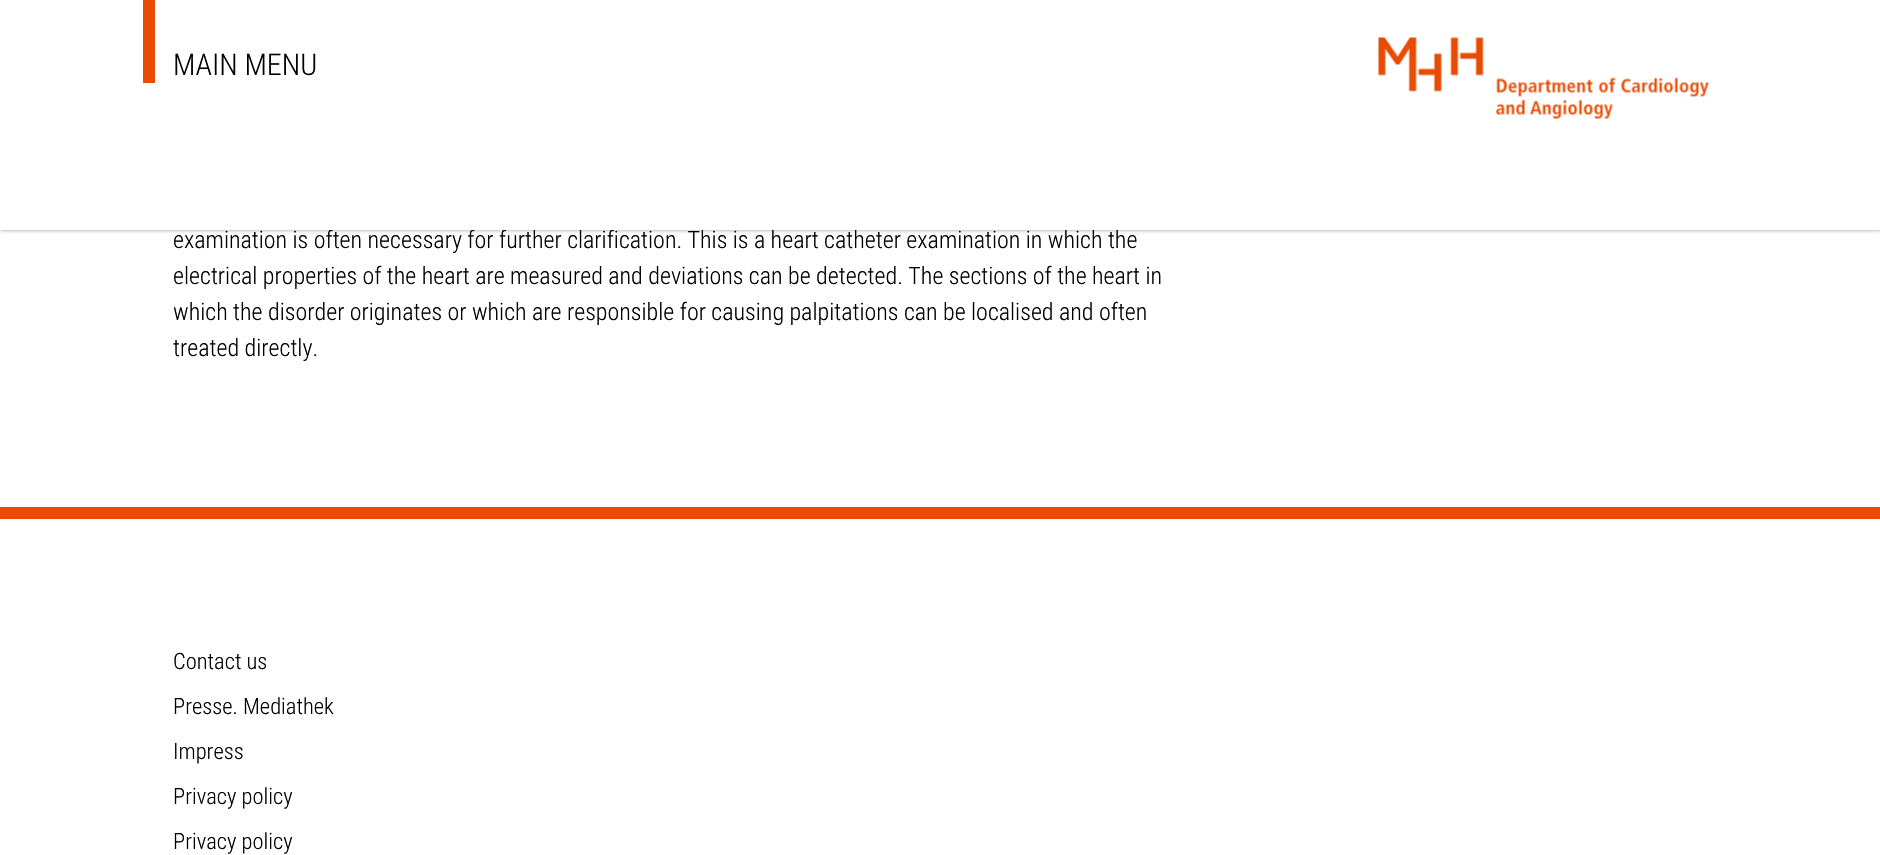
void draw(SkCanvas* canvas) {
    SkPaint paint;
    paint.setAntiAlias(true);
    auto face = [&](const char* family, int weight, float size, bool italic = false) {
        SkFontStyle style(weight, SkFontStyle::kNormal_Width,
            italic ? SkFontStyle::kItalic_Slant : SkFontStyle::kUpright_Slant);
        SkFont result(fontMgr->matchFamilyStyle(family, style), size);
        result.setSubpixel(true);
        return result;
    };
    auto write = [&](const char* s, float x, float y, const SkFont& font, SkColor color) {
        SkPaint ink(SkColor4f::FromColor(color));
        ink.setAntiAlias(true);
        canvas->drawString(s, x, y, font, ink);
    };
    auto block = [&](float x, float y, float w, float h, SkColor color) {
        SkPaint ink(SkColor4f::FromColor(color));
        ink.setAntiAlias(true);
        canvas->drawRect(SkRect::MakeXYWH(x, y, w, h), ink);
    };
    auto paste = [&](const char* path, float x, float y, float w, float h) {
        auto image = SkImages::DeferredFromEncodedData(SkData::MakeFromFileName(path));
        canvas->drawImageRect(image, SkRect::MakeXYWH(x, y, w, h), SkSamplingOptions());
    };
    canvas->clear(SK_ColorWHITE);
    paint.setColor(SkColorSetRGB(153, 153, 153));
    paint.setMaskFilter(SkMaskFilter::MakeBlur(kNormal_SkBlurStyle, 2));
    canvas->drawRect(SkRect::MakeXYWH(0, 0, 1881, 230), paint);
    paint.setMaskFilter(nullptr);
    auto kFont1 = face("Roboto Condensed", 300, 24);
    write("examination is often necessary for further clarification. This is a heart catheter examination in which the", 173, 248, kFont1, SK_ColorBLACK);
    block(0, 0, 1880, 230, SK_ColorWHITE);
    block(143, 0, 12, 83, SkColorSetRGB(232, 75, 4));
    auto kFont2 = face("Roboto Condensed", 300, 30);
    write("MAIN MENU", 173, 75, kFont2, SK_ColorBLACK);
    paste("pic1.png", 1378, 37, 331, 82);
    write("electrical properties of the heart are measured and deviations can be detected. The sections of the heart in", 173, 284, kFont1, SK_ColorBLACK);
    write("which the disorder originates or which are responsible for causing palpitations can be localised and often", 173, 320, kFont1, SK_ColorBLACK);
    write("treated directly.", 173, 356, kFont1, SK_ColorBLACK);
    block(0, 507, 1880, 12, SkColorSetRGB(232, 75, 4));
    auto kFont3 = face("Roboto Condensed", 300, 22.5f);
    write("Contact us", 173, 669, kFont3, SK_ColorBLACK);
    write("Presse. Mediathek", 173, 714, kFont3, SK_ColorBLACK);
    write("Impress", 173, 759, kFont3, SK_ColorBLACK);
    write("Privacy policy", 173, 804, kFont3, SK_ColorBLACK);
    write("Privacy policy", 173, 849, kFont3, SK_ColorBLACK);
}
